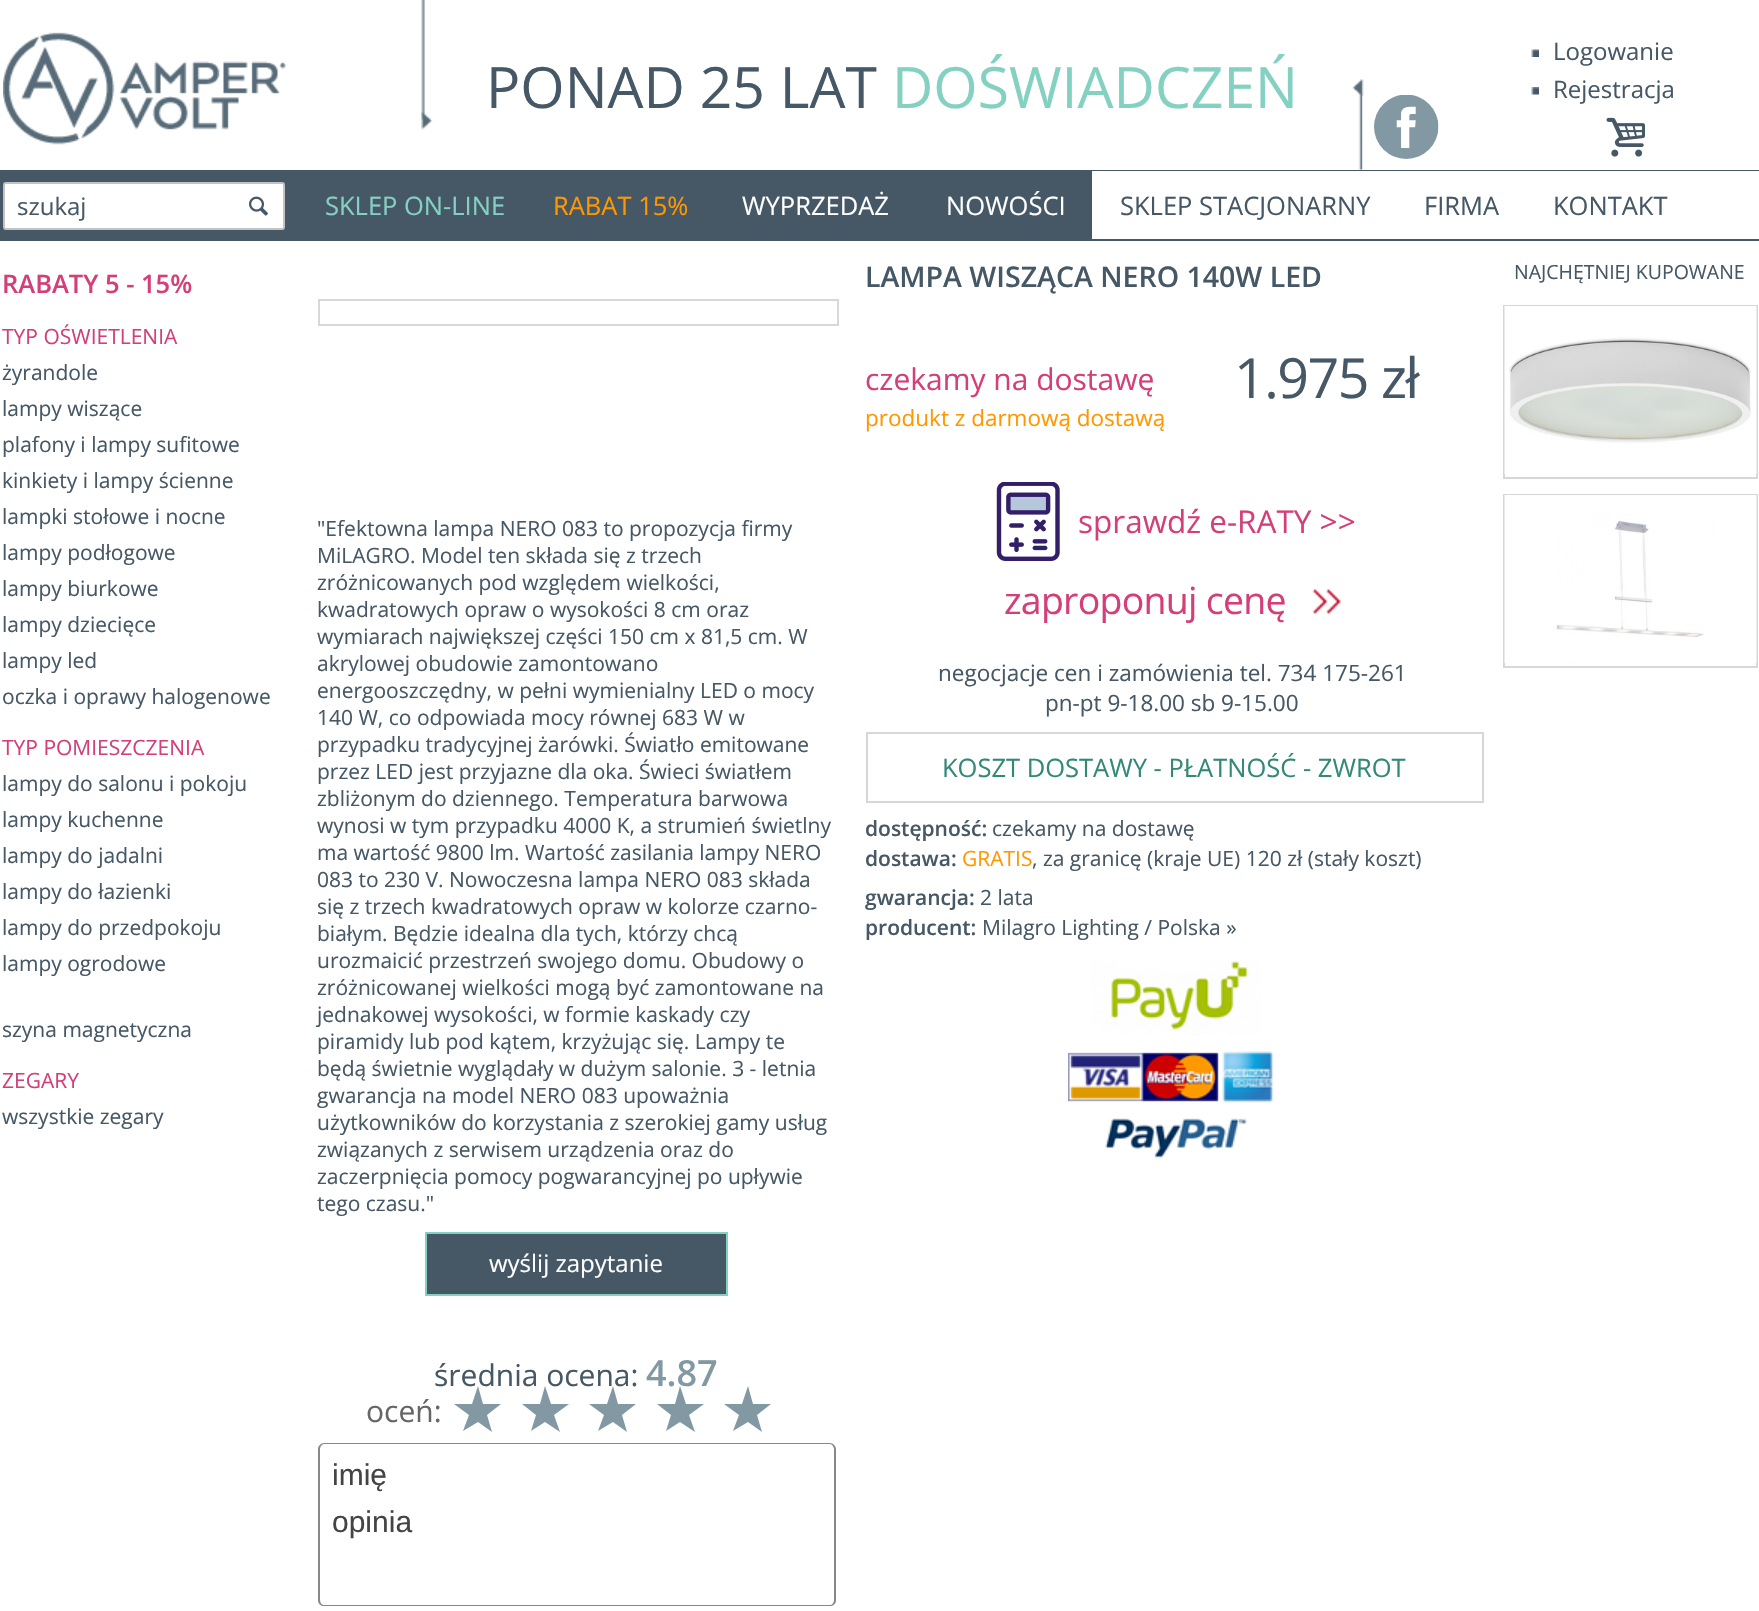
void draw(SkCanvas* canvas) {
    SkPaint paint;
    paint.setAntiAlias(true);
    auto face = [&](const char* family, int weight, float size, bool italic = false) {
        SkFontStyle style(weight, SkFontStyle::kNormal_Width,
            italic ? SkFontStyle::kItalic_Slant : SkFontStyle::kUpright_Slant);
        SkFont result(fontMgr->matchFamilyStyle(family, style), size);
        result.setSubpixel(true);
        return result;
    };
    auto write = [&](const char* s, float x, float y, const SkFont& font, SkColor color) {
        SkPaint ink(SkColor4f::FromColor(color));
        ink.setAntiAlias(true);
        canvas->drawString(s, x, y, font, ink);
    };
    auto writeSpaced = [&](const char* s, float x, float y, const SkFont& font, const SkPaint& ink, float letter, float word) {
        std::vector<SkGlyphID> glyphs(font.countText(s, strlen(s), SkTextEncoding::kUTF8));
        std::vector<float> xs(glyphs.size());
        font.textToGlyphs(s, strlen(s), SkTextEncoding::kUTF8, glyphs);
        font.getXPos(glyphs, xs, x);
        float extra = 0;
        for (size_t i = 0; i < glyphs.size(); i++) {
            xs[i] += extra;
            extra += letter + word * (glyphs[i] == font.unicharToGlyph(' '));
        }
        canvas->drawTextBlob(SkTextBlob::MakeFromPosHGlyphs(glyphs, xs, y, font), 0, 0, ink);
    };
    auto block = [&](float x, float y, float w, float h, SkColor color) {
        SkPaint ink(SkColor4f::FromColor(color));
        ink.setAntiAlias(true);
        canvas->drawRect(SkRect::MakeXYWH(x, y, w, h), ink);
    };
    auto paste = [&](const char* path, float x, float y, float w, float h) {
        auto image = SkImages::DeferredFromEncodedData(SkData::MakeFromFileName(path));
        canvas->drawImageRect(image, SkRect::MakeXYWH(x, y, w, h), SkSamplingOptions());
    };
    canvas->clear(SK_ColorWHITE);
    paste("pic1.png", 3, 32, 284, 113);
    paste("pic2.png", 421, 0, 943, 170);
    auto kFont1 = face("Open Sans", 400, 57);
    write("PONAD 25 LAT", 486, 108, kFont1, SkColorSetRGB(70, 88, 102));
    write("DOŚWIADCZEŃ", 892, 108, kFont1, SkColorSetRGB(132, 209, 194));
    paste("pic3.png", 1531, 49, 8, 8);
    auto kFont2 = face("Open Sans", 400, 24);
    write("Logowanie", 1553, 60, kFont2, SkColorSetRGB(70, 88, 102));
    paste("pic4.png", 1531, 87, 8, 8);
    write("Rejestracja", 1553, 98, kFont2, SkColorSetRGB(70, 88, 102));
    paste("pic5.png", 1606, 117, 39, 40);
    paste("pic6.png", 1374, 95, 65, 64);
    block(0, 170, 1759, 71, SkColorSetRGB(70, 88, 102));
    block(1092, 171, 667, 68, SK_ColorWHITE);
    paint.setColor(SK_ColorWHITE);
    canvas->drawRoundRect(SkRect::MakeXYWH(4, 183, 280, 46), 2, 2, paint);
    paint.setStyle(SkPaint::kStroke_Style);
    paint.setStrokeWidth(2);
    paint.setColor(SkColorSetRGB(195, 195, 195));
    canvas->drawRoundRect(SkRect::MakeXYWH(4, 183, 280, 46), 2, 2, paint);
    write("szukaj", 17, 215, kFont2, SkColorSetRGB(70, 88, 102));
    paste("pic7.png", 249, 196, 19, 20);
    auto kFont3 = face("Open Sans", 400, 25.5f);
    write("SKLEP ON-LINE", 325, 215, kFont3, SkColorSetRGB(132, 209, 194));
    write("RABAT 15%", 553, 215, kFont3, SkColorSetRGB(255, 152, 0));
    write("WYPRZEDAŻ", 742, 215, kFont3, SK_ColorWHITE);
    write("NOWOŚCI", 946, 215, kFont3, SK_ColorWHITE);
    write("SKLEP STACJONARNY", 1120, 215, kFont3, SkColorSetRGB(70, 88, 102));
    write("FIRMA", 1424, 215, kFont3, SkColorSetRGB(70, 88, 102));
    write("KONTAKT", 1553, 215, kFont3, SkColorSetRGB(70, 88, 102));
    auto kFont4 = face("Open Sans", 600, 25.5f);
    write("RABATY 5 - 15%", 2, 293, kFont4, SkColorSetRGB(212, 63, 121));
    auto kFont5 = face("Open Sans", 400, 21);
    write("TYP OŚWIETLENIA", 2, 344, kFont5, SkColorSetRGB(212, 63, 121));
    write("żyrandole", 2, 380, kFont5, SkColorSetRGB(70, 88, 102));
    write("lampy wiszące", 2, 416, kFont5, SkColorSetRGB(70, 88, 102));
    write("plafony i lampy sufitowe", 2, 452, kFont5, SkColorSetRGB(70, 88, 102));
    write("kinkiety i lampy ścienne", 2, 488, kFont5, SkColorSetRGB(70, 88, 102));
    write("lampki stołowe i nocne", 2, 524, kFont5, SkColorSetRGB(70, 88, 102));
    write("lampy podłogowe", 2, 560, kFont5, SkColorSetRGB(70, 88, 102));
    write("lampy biurkowe", 2, 596, kFont5, SkColorSetRGB(70, 88, 102));
    write("lampy dziecięce", 2, 632, kFont5, SkColorSetRGB(70, 88, 102));
    write("lampy led", 2, 668, kFont5, SkColorSetRGB(70, 88, 102));
    write("oczka i oprawy halogenowe", 2, 704, kFont5, SkColorSetRGB(70, 88, 102));
    write("TYP POMIESZCZENIA", 2, 755, kFont5, SkColorSetRGB(212, 63, 121));
    write("lampy do salonu i pokoju", 2, 791, kFont5, SkColorSetRGB(70, 88, 102));
    write("lampy kuchenne", 2, 827, kFont5, SkColorSetRGB(70, 88, 102));
    write("lampy do jadalni", 2, 863, kFont5, SkColorSetRGB(70, 88, 102));
    write("lampy do łazienki", 2, 899, kFont5, SkColorSetRGB(70, 88, 102));
    write("lampy do przedpokoju", 2, 935, kFont5, SkColorSetRGB(70, 88, 102));
    write("lampy ogrodowe", 2, 971, kFont5, SkColorSetRGB(70, 88, 102));
    write("szyna magnetyczna", 2, 1037, kFont5, SkColorSetRGB(70, 88, 102));
    write("ZEGARY", 2, 1088, kFont5, SkColorSetRGB(212, 63, 121));
    write("wszystkie zegary", 2, 1124, kFont5, SkColorSetRGB(70, 88, 102));
    paint.setColor(SkColorSetRGB(215, 215, 215));
    canvas->drawRect(SkRect::MakeXYWH(319, 300, 519, 25), paint);
    write("\"Efektowna lampa NERO 083 to propozycja firmy", 317, 536, kFont5, SkColorSetRGB(70, 88, 102));
    write("MiLAGRO. Model ten składa się z trzech", 317, 563, kFont5, SkColorSetRGB(70, 88, 102));
    write("zróżnicowanych pod względem wielkości,", 317, 590, kFont5, SkColorSetRGB(70, 88, 102));
    write("kwadratowych opraw o wysokości 8 cm oraz", 317, 617, kFont5, SkColorSetRGB(70, 88, 102));
    write("wymiarach największej części 150 cm x 81,5 cm. W", 317, 644, kFont5, SkColorSetRGB(70, 88, 102));
    write("akrylowej obudowie zamontowano", 317, 671, kFont5, SkColorSetRGB(70, 88, 102));
    write("energooszczędny, w pełni wymienialny LED o mocy", 317, 698, kFont5, SkColorSetRGB(70, 88, 102));
    write("140 W, co odpowiada mocy równej 683 W w", 317, 725, kFont5, SkColorSetRGB(70, 88, 102));
    write("przypadku tradycyjnej żarówki. Światło emitowane", 317, 752, kFont5, SkColorSetRGB(70, 88, 102));
    write("przez LED jest przyjazne dla oka. Świeci światłem", 317, 779, kFont5, SkColorSetRGB(70, 88, 102));
    write("zbliżonym do dziennego. Temperatura barwowa", 317, 806, kFont5, SkColorSetRGB(70, 88, 102));
    write("wynosi w tym przypadku 4000 K, a strumień świetlny", 317, 833, kFont5, SkColorSetRGB(70, 88, 102));
    write("ma wartość 9800 lm. Wartość zasilania lampy NERO", 317, 860, kFont5, SkColorSetRGB(70, 88, 102));
    write("083 to 230 V. Nowoczesna lampa NERO 083 składa", 317, 887, kFont5, SkColorSetRGB(70, 88, 102));
    write("się z trzech kwadratowych opraw w kolorze czarno-", 317, 914, kFont5, SkColorSetRGB(70, 88, 102));
    write("białym. Będzie idealna dla tych, którzy chcą", 317, 941, kFont5, SkColorSetRGB(70, 88, 102));
    write("urozmaicić przestrzeń swojego domu. Obudowy o", 317, 968, kFont5, SkColorSetRGB(70, 88, 102));
    write("zróżnicowanej wielkości mogą być zamontowane na", 317, 995, kFont5, SkColorSetRGB(70, 88, 102));
    write("jednakowej wysokości, w formie kaskady czy", 317, 1022, kFont5, SkColorSetRGB(70, 88, 102));
    write("piramidy lub pod kątem, krzyżując się. Lampy te", 317, 1049, kFont5, SkColorSetRGB(70, 88, 102));
    write("będą świetnie wyglądały w dużym salonie. 3 - letnia", 317, 1076, kFont5, SkColorSetRGB(70, 88, 102));
    write("gwarancja na model NERO 083 upoważnia", 317, 1103, kFont5, SkColorSetRGB(70, 88, 102));
    write("użytkowników do korzystania z szerokiej gamy usług", 317, 1130, kFont5, SkColorSetRGB(70, 88, 102));
    write("związanych z serwisem urządzenia oraz do", 317, 1157, kFont5, SkColorSetRGB(70, 88, 102));
    write("zaczerpnięcia pomocy pogwarancyjnej po upływie", 317, 1184, kFont5, SkColorSetRGB(70, 88, 102));
    write("tego czasu.\"", 317, 1211, kFont5, SkColorSetRGB(70, 88, 102));
    paint.setStyle(SkPaint::kFill_Style);
    paint.setColor(SkColorSetRGB(70, 88, 102));
    canvas->drawRect(SkRect::MakeXYWH(426, 1233, 301, 62), paint);
    paint.setStyle(SkPaint::kStroke_Style);
    paint.setColor(SkColorSetRGB(132, 209, 194));
    canvas->drawRect(SkRect::MakeXYWH(426, 1233, 301, 62), paint);
    write("wyślij zapytanie", 489, 1272, kFont2, SK_ColorWHITE);
    auto kFont6 = face("Open Sans", 400, 30);
    write("średnia ocena:", 434, 1386, kFont6, SkColorSetRGB(70, 88, 102));
    auto kFont7 = face("Open Sans", 600, 36);
    write("4.87", 646, 1386, kFont7, SkColorSetRGB(130, 153, 163));
    write("oceń:", 366, 1422, kFont6, SkColorSetRGB(102, 102, 102));
    paint.setStyle(SkPaint::kFill_Style);
    paint.setColor(SkColorSetRGB(130, 153, 163));
    canvas->drawPath(SkPathBuilder().moveTo(478, 1386).lineTo(472, 1404).lineTo(454, 1404).lineTo(469, 1415).lineTo(463, 1431).lineTo(478, 1422).lineTo(492, 1432).lineTo(487, 1415).lineTo(501, 1404).lineTo(483, 1404).close().detach(), paint);
    canvas->drawPath(SkPathBuilder().moveTo(545, 1386).lineTo(540, 1404).lineTo(522, 1404).lineTo(536, 1415).lineTo(531, 1431).lineTo(545, 1422).lineTo(560, 1432).lineTo(554, 1415).lineTo(569, 1404).lineTo(551, 1404).close().detach(), paint);
    canvas->drawPath(SkPathBuilder().moveTo(613, 1386).lineTo(607, 1404).lineTo(589, 1404).lineTo(604, 1415).lineTo(598, 1431).lineTo(613, 1422).lineTo(627, 1432).lineTo(622, 1415).lineTo(636, 1404).lineTo(618, 1404).close().detach(), paint);
    canvas->drawPath(SkPathBuilder().moveTo(680, 1386).lineTo(675, 1404).lineTo(657, 1404).lineTo(671, 1415).lineTo(666, 1431).lineTo(680, 1422).lineTo(695, 1432).lineTo(689, 1415).lineTo(704, 1404).lineTo(686, 1404).close().detach(), paint);
    canvas->drawPath(SkPathBuilder().moveTo(748, 1386).lineTo(742, 1404).lineTo(724, 1404).lineTo(739, 1415).lineTo(733, 1431).lineTo(748, 1422).lineTo(762, 1432).lineTo(757, 1415).lineTo(771, 1404).lineTo(753, 1404).close().detach(), paint);
    paint.setColor(SkColorSetRGB(136, 136, 136));
    canvas->drawPath(SkPathBuilder(SkPathFillType::kEvenOdd).moveTo(324, 1443).lineTo(830, 1443).cubicTo(833, 1443, 836, 1446, 836, 1449).lineTo(836, 1506).lineTo(318, 1506).lineTo(318, 1449).cubicTo(318, 1446, 321, 1443, 324, 1443).close().moveTo(324, 1444).lineTo(830, 1444).cubicTo(832, 1444, 834, 1447, 834, 1449).lineTo(834, 1506).lineTo(320, 1506).lineTo(320, 1449).cubicTo(320, 1447, 322, 1444, 324, 1444).close().detach(), paint);
    auto kFont8 = face("Liberation Sans", 400, 30);
    write("imię", 332, 1485, kFont8, SkColorSetRGB(68, 68, 68));
    paint.setColor(SK_ColorWHITE);
    canvas->drawPath(SkPathBuilder().moveTo(318, 1505).lineTo(836, 1505).lineTo(836, 1601).cubicTo(836, 1604.5f, 833.5f, 1607, 830, 1607).lineTo(324, 1607).cubicTo(320.5f, 1607, 318, 1604.5f, 318, 1601).close().detach(), paint);
    paint.setColor(SkColorSetRGB(136, 136, 136));
    canvas->drawPath(SkPathBuilder(SkPathFillType::kEvenOdd).moveTo(318, 1504).lineTo(836, 1504).lineTo(836, 1600).cubicTo(836, 1604, 833, 1606, 830, 1606).lineTo(324, 1606).cubicTo(321, 1606, 318, 1604, 318, 1600).close().moveTo(320, 1504).lineTo(834, 1504).lineTo(834, 1600).cubicTo(834, 1603, 832, 1605, 830, 1605).lineTo(324, 1605).cubicTo(322, 1605, 320, 1603, 320, 1600).close().detach(), paint);
    write("opinia", 332, 1532, kFont8, SkColorSetRGB(68, 68, 68));
    auto kFont9 = face("Open Sans", 600, 28.5f);
    write("LAMPA WISZĄCA NERO 140W LED", 865, 287, kFont9, SkColorSetRGB(70, 88, 102));
    write("czekamy na dostawę", 865, 390, kFont6, SkColorSetRGB(212, 63, 121));
    auto kFont10 = face("Open Sans", 400, 55.5f);
    paint.setColor(SkColorSetRGB(70, 88, 102));
    writeSpaced("1.975 zł", 1234, 398, kFont10, paint, -1.5f, 0);
    auto kFont11 = face("Open Sans", 400, 22.5f);
    write("produkt z darmową dostawą", 865, 426, kFont11, SkColorSetRGB(255, 152, 0));
    paste("pic8.png", 996, 482, 64, 79);
    auto kFont12 = face("Open Sans", 400, 31.5f);
    write("sprawdź e-RATY >>", 1078, 533, kFont12, SkColorSetRGB(212, 63, 121));
    auto kFont13 = face("Open Sans", 400, 37.5f);
    paint.setColor(SkColorSetRGB(212, 63, 121));
    writeSpaced("zaproponuj cenę", 1004, 614, kFont13, paint, -0.75f, 0);
    paste("pic9.png", 1312, 589, 16, 25);
    paste("pic10.png", 1326, 589, 15, 25);
    write("negocjacje cen i zamówienia tel. 734 175-261", 938, 681, kFont11, SkColorSetRGB(70, 88, 102));
    write("pn-pt 9-18.00 sb 9-15.00", 1045, 711, kFont11, SkColorSetRGB(70, 88, 102));
    paint.setStyle(SkPaint::kStroke_Style);
    paint.setColor(SkColorSetRGB(215, 215, 215));
    canvas->drawRect(SkRect::MakeXYWH(867, 733, 616, 69), paint);
    write("KOSZT DOSTAWY - PŁATNOŚĆ - ZWROT", 942, 777, kFont3, SkColorSetRGB(51, 137, 120));
    auto kFont14 = face("Open Sans", 600, 21);
    write("dostępność:", 865, 836, kFont14, SkColorSetRGB(70, 88, 102));
    write("czekamy na dostawę", 992, 836, kFont5, SkColorSetRGB(70, 88, 102));
    write("dostawa:", 865, 866, kFont14, SkColorSetRGB(70, 88, 102));
    write("GRATIS", 962, 866, kFont5, SkColorSetRGB(255, 152, 0));
    write(", za granicę (kraje UE) 120 zł (stały koszt)", 1032, 866, kFont5, SkColorSetRGB(70, 88, 102));
    write("gwarancja:", 865, 905, kFont14, SkColorSetRGB(70, 88, 102));
    write("2 lata", 980, 905, kFont5, SkColorSetRGB(70, 88, 102));
    write("producent:", 865, 935, kFont14, SkColorSetRGB(70, 88, 102));
    write("Milagro Lighting / Polska »", 982, 935, kFont5, SkColorSetRGB(70, 88, 102));
    paste("pic11.png", 1068, 961, 206, 198);
    auto kFont15 = face("Open Sans", 400, 19.5f);
    write("NAJCHĘTNIEJ KUPOWANE", 1514, 279, kFont15, SkColorSetRGB(70, 88, 102));
    canvas->drawRect(SkRect::MakeXYWH(1504, 306, 253, 172), paint);
    paste("pic12.png", 1504, 306, 253, 168);
    canvas->drawRect(SkRect::MakeXYWH(1504, 495, 253, 172), paint);
    paste("pic13.png", 1504, 495, 253, 168);
}
